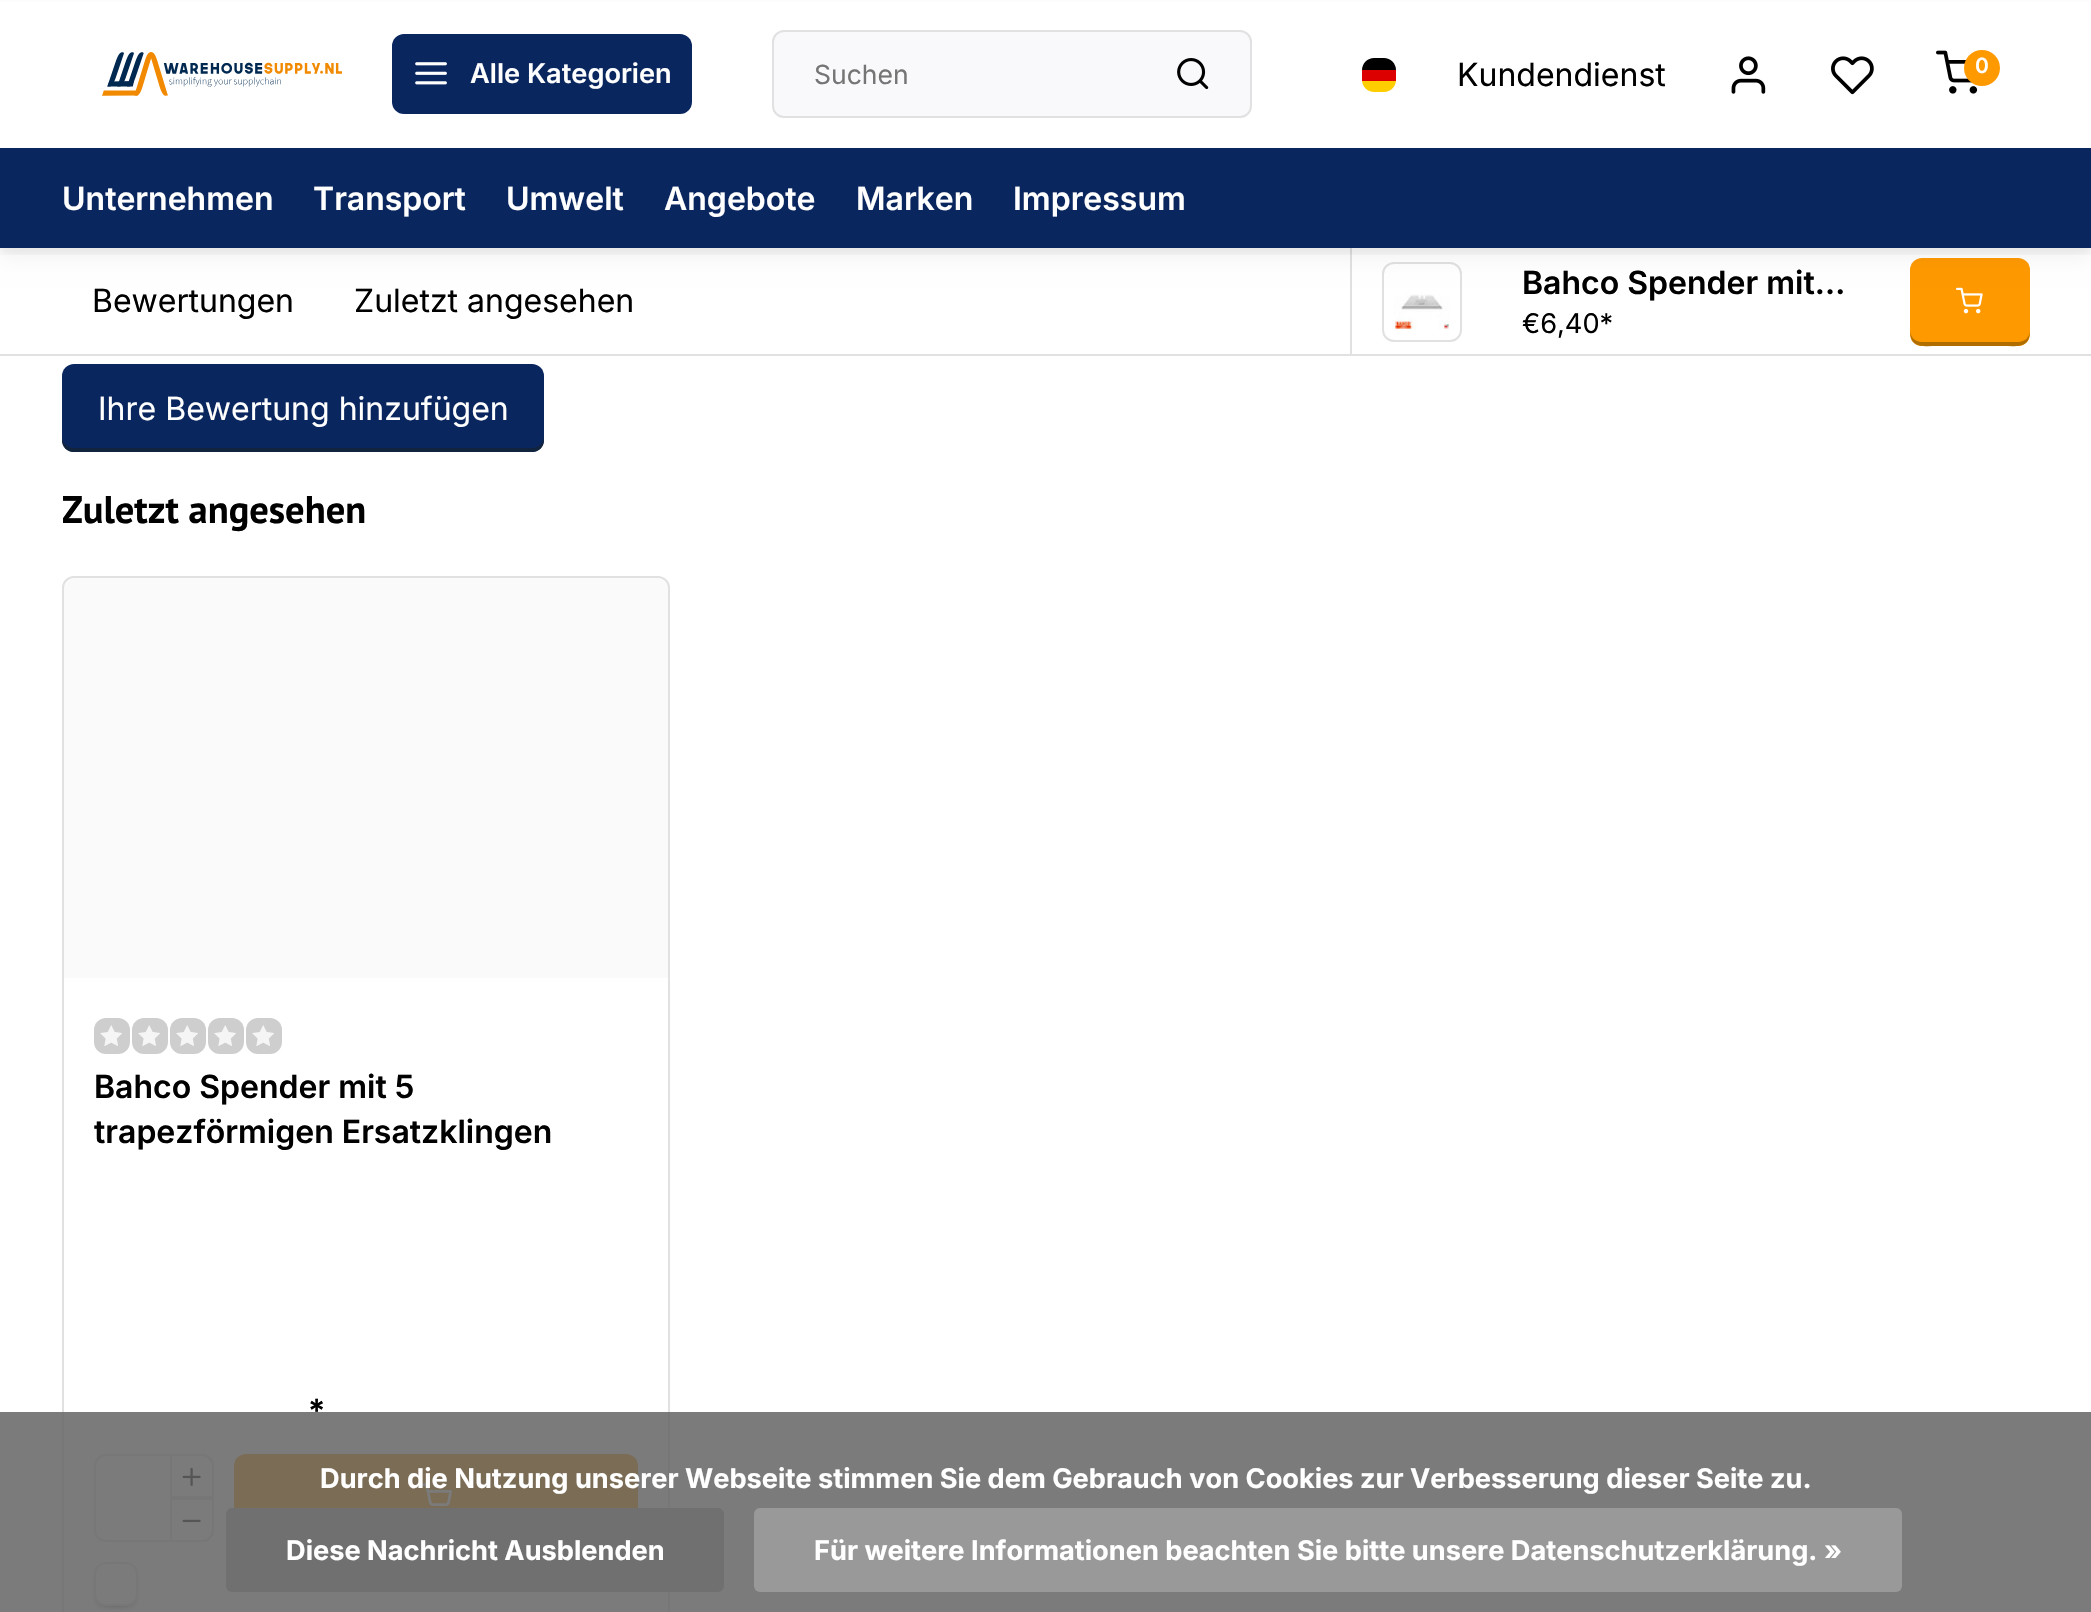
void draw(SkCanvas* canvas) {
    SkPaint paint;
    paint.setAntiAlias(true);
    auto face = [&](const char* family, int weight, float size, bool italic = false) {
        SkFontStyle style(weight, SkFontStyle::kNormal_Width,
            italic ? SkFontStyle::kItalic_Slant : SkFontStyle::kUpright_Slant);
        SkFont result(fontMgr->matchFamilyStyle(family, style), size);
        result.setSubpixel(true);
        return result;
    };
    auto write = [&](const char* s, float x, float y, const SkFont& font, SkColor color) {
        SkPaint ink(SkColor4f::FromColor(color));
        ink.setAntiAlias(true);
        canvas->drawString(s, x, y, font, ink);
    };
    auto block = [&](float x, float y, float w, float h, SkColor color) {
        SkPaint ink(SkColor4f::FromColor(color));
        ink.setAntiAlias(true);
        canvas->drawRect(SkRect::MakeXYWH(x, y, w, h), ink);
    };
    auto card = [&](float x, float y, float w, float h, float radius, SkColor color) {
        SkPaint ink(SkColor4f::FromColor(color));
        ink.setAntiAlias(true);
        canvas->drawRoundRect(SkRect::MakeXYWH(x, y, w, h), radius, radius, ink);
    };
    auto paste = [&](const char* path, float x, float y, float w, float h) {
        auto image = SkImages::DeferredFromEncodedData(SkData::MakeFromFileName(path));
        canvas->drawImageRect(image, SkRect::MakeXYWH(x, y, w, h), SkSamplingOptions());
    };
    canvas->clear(SK_ColorWHITE);
    block(1350, 248, 2, 106, SkColorSetRGB(225, 225, 225));
    paint.setStyle(SkPaint::kStroke_Style);
    paint.setStrokeWidth(2);
    paint.setColor(SkColorSetRGB(225, 225, 225));
    canvas->drawRoundRect(SkRect::MakeXYWH(1383, 263, 78, 78), 11, 11, paint);
    card(1910, 258, 120, 88, 12, SkColorSetRGB(255, 153, 0));
    paste("pic8.png", 1956, 287, 27, 27);
    paint.setStyle(SkPaint::kFill_Style);
    paint.setColor(SkColorSetARGB(13, 0, 0, 0));
    paint.setMaskFilter(SkMaskFilter::MakeBlur(kNormal_SkBlurStyle, 10));
    canvas->drawRect(SkRect::MakeXYWH(0, 10, 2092, 248), paint);
    paint.setMaskFilter(nullptr);
    block(0, 2, 2091, 146, SK_ColorWHITE);
    canvas->save();
    canvas->clipRect(SkRect::MakeXYWH(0, 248, 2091, 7));
    paint.setMaskFilter(SkMaskFilter::MakeBlur(kNormal_SkBlurStyle, 4));
    canvas->drawRect(SkRect::MakeXYWH(0, 6, 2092, 248), paint);
    paint.setMaskFilter(nullptr);
    canvas->restore();
    paste("pic1.png", 102, 52, 240, 44);
    card(392, 34, 300, 80, 12, SkColorSetRGB(10, 38, 94));
    paste("pic2.png", 415, 62, 32, 23);
    auto kFont1 = face("Inter", 600, 27.2f);
    write("Alle Kategorien", 470, 83, kFont1, SK_ColorWHITE);
    paint.setColor(SkColorSetRGB(249, 249, 251));
    canvas->drawRoundRect(SkRect::MakeXYWH(773, 31, 478, 86), 11, 11, paint);
    paint.setStyle(SkPaint::kStroke_Style);
    paint.setColor(SkColorSetRGB(225, 225, 225));
    canvas->drawRoundRect(SkRect::MakeXYWH(773, 31, 478, 86), 11, 11, paint);
    auto kFont2 = face("Inter", 400, 26.5f);
    write("Suchen", 814, 84, kFont2, SkColorSetRGB(117, 117, 117));
    paste("pic3.png", 1177, 58, 32, 32);
    canvas->save();
    canvas->clipPath(SkPathBuilder().moveTo(1374, 58).lineTo(1384, 58).cubicTo(1390.5f, 58, 1396, 63.5f, 1396, 70).lineTo(1396, 80).cubicTo(1396, 86.5f, 1390.5f, 92, 1384, 92).lineTo(1374, 92).cubicTo(1367.5f, 92, 1362, 86.5f, 1362, 80).lineTo(1362, 70).cubicTo(1362, 63.5f, 1367.5f, 58, 1374, 58).close().detach(), true);
    block(1362, 81, 34, 11, SkColorSetRGB(255, 206, 0));
    canvas->restore();
    paint.setStyle(SkPaint::kFill_Style);
    paint.setColor(SK_ColorBLACK);
    canvas->drawPath(SkPathBuilder().moveTo(1374, 58).lineTo(1384, 58).cubicTo(1390.5f, 58, 1396, 63.5f, 1396, 70).lineTo(1362, 70).cubicTo(1362, 63.5f, 1367.5f, 58, 1374, 58).close().detach(), paint);
    block(1362, 70, 34, 11, SkColorSetRGB(221, 0, 0));
    auto kFont3 = face("Inter", 400, 32);
    write("Kundendienst", 1457, 86, kFont3, SK_ColorBLACK);
    paste("pic4.png", 1731, 56, 35, 38);
    paste("pic5.png", 1831, 56, 43, 39);
    paste("pic6.png", 1936, 50, 42, 44);
    paint.setColor(SkColorSetRGB(255, 153, 0));
    canvas->drawCircle(1982, 68, 18, paint);
    auto kFont4 = face("Inter", 600, 21);
    write("0", 1975, 73, kFont4, SK_ColorWHITE);
    block(0, 148, 2091, 100, SkColorSetRGB(10, 38, 94));
    auto kFont5 = face("Inter", 600, 32);
    write("Unternehmen", 62, 210, kFont5, SK_ColorWHITE);
    write("Transport", 313, 210, kFont5, SK_ColorWHITE);
    write("Umwelt", 506, 210, kFont5, SK_ColorWHITE);
    write("Angebote", 664, 210, kFont5, SK_ColorWHITE);
    write("Marken", 856, 210, kFont5, SK_ColorWHITE);
    write("Impressum", 1013, 210, kFont5, SK_ColorWHITE);
    block(0, 354, 2091, 2, SkColorSetRGB(225, 225, 225));
    write("Bewertungen", 92, 312, kFont3, SK_ColorBLACK);
    write("Zuletzt angesehen", 354, 312, kFont3, SK_ColorBLACK);
    paste("pic7.png", 1394, 294, 56, 36);
    write("Bahco Spender mit…", 1522, 294, kFont5, SK_ColorBLACK);
    auto kFont6 = face("Inter", 400, 27.2f);
    write("€6,40*", 1522, 333, kFont6, SK_ColorBLACK);
    paint.setColor(SkColorSetRGB(177, 110, 0));
    canvas->drawPath(SkPathBuilder().moveTo(1910, 330).cubicTo(1910, 349, 1922, 346, 1938, 346).lineTo(2002, 346).cubicTo(2018, 346, 2030, 349, 2030, 330).cubicTo(2030, 337, 2025, 342, 2018, 342).lineTo(1922, 342).cubicTo(1915, 342, 1910, 337, 1910, 330).close().detach(), paint);
    card(62, 364, 482, 88, 12, SkColorSetRGB(10, 38, 94));
    paint.setColor(SkColorSetRGB(18, 35, 61));
    canvas->drawPath(SkPathBuilder().moveTo(62, 436).lineTo(62, 440).cubicTo(62, 447, 67, 452, 74, 452).lineTo(532, 452).cubicTo(539, 452, 544, 447, 544, 440).lineTo(544, 436).cubicTo(544, 443, 539, 448, 532, 448).lineTo(74, 448).cubicTo(67, 448, 62, 443, 62, 436).close().detach(), paint);
    write("Ihre Bewertung hinzufügen", 98, 420, kFont3, SK_ColorWHITE);
    auto kFont7 = face("PT Sans", 700, 38.5f);
    write("Zuletzt angesehen", 62, 523, kFont7, SK_ColorBLACK);
    paint.setStyle(SkPaint::kStroke_Style);
    paint.setColor(SkColorSetRGB(225, 225, 225));
    canvas->drawRoundRect(SkRect::MakeXYWH(63, 577, 606, 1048), 11, 11, paint);
    canvas->save();
    canvas->clipPath(SkPathBuilder().moveTo(74, 578).lineTo(658, 578).cubicTo(663.5f, 578, 668, 582.5f, 668, 588).lineTo(668, 1674).cubicTo(668, 1679.5f, 663.5f, 1684, 658, 1684).lineTo(74, 1684).cubicTo(68.5f, 1684, 64, 1679.5f, 64, 1674).lineTo(64, 588).cubicTo(64, 582.5f, 68.5f, 578, 74, 578).close().detach(), true);
    paint.setStyle(SkPaint::kFill_Style);
    paint.setColor(SkColorSetRGB(250, 250, 250));
    canvas->drawPath(SkPathBuilder().moveTo(76, 578).lineTo(656, 578).cubicTo(662.5f, 578, 668, 583.5f, 668, 590).lineTo(668, 978).lineTo(64, 978).lineTo(64, 590).cubicTo(64, 583.5f, 69.5f, 578, 76, 578).close().detach(), paint);
    canvas->restore();
    card(94, 1018, 36, 36, 12, SkColorSetRGB(206, 206, 206));
    paste("pic9.png", 100, 1025, 22, 21);
    card(132, 1018, 36, 36, 12, SkColorSetRGB(206, 206, 206));
    paste("pic9.png", 138, 1025, 22, 21);
    card(170, 1018, 36, 36, 12, SkColorSetRGB(206, 206, 206));
    paste("pic9.png", 176, 1025, 22, 21);
    card(208, 1018, 36, 36, 12, SkColorSetRGB(206, 206, 206));
    paste("pic9.png", 214, 1025, 22, 21);
    card(246, 1018, 36, 36, 12, SkColorSetRGB(206, 206, 206));
    paste("pic9.png", 252, 1025, 22, 21);
    write("Bahco Spender mit 5", 94, 1098, kFont5, SK_ColorBLACK);
    write("trapezförmigen Ersatzklingen", 94, 1143, kFont5, SK_ColorBLACK);
    write("*", 308, 1422, kFont5, SK_ColorBLACK);
    paint.setStyle(SkPaint::kStroke_Style);
    paint.setColor(SkColorSetRGB(225, 225, 225));
    canvas->drawRoundRect(SkRect::MakeXYWH(95, 1455, 118, 86), 11, 11, paint);
    canvas->drawPath(SkPathBuilder().moveTo(171, 1455).lineTo(202, 1455).cubicTo(208, 1455, 213, 1460, 213, 1466).lineTo(213, 1497).lineTo(171, 1497).close().detach(), paint);
    paste("pic10.png", 182, 1467, 19, 19);
    canvas->drawPath(SkPathBuilder().moveTo(171, 1499).lineTo(213, 1499).lineTo(213, 1530).cubicTo(213, 1536, 208, 1541, 202, 1541).lineTo(171, 1541).close().detach(), paint);
    paste("pic11.png", 182, 1519, 19, 4);
    card(234, 1454, 404, 88, 12, SkColorSetRGB(255, 153, 0));
    paste("pic12.png", 420, 1483, 32, 23);
    canvas->save();
    canvas->clipPath(SkPathBuilder(SkPathFillType::kEvenOdd).moveTo(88, 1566).lineTo(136, 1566).lineTo(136, 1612).lineTo(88, 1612).close().moveTo(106, 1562).lineTo(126, 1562).cubicTo(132.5f, 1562, 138, 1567.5f, 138, 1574).lineTo(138, 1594).cubicTo(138, 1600.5f, 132.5f, 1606, 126, 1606).lineTo(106, 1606).cubicTo(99.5f, 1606, 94, 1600.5f, 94, 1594).lineTo(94, 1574).cubicTo(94, 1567.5f, 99.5f, 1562, 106, 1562).close().detach(), true);
    paint.setStyle(SkPaint::kFill_Style);
    paint.setColor(SkColorSetRGB(153, 153, 153));
    paint.setMaskFilter(SkMaskFilter::MakeBlur(kNormal_SkBlurStyle, 3));
    canvas->drawRoundRect(SkRect::MakeXYWH(98, 1576, 28, 28), 4, 4, paint);
    paint.setMaskFilter(nullptr);
    canvas->restore();
    canvas->save();
    canvas->clipPath(SkPathBuilder(SkPathFillType::kEvenOdd).moveTo(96, 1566).lineTo(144, 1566).lineTo(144, 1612).lineTo(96, 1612).close().moveTo(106, 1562).lineTo(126, 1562).cubicTo(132.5f, 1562, 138, 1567.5f, 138, 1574).lineTo(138, 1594).cubicTo(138, 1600.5f, 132.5f, 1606, 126, 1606).lineTo(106, 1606).cubicTo(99.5f, 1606, 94, 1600.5f, 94, 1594).lineTo(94, 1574).cubicTo(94, 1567.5f, 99.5f, 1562, 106, 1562).close().detach(), true);
    paint.setMaskFilter(SkMaskFilter::MakeBlur(kNormal_SkBlurStyle, 3));
    canvas->drawRoundRect(SkRect::MakeXYWH(106, 1576, 28, 28), 4, 4, paint);
    paint.setMaskFilter(nullptr);
    canvas->restore();
    canvas->save();
    canvas->clipPath(SkPathBuilder(SkPathFillType::kEvenOdd).moveTo(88, 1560).lineTo(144, 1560).lineTo(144, 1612).lineTo(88, 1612).close().moveTo(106, 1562).lineTo(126, 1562).cubicTo(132.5f, 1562, 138, 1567.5f, 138, 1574).lineTo(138, 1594).cubicTo(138, 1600.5f, 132.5f, 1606, 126, 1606).lineTo(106, 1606).cubicTo(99.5f, 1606, 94, 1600.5f, 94, 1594).lineTo(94, 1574).cubicTo(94, 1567.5f, 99.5f, 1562, 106, 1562).close().detach(), true);
    paint.setMaskFilter(SkMaskFilter::MakeBlur(kNormal_SkBlurStyle, 3));
    canvas->drawRoundRect(SkRect::MakeXYWH(98, 1570, 36, 36), 8, 8, paint);
    paint.setMaskFilter(nullptr);
    canvas->restore();
    paint.setStyle(SkPaint::kStroke_Style);
    paint.setColor(SkColorSetRGB(225, 225, 225));
    canvas->drawRoundRect(SkRect::MakeXYWH(95, 1563, 42, 42), 11, 11, paint);
    block(0, 1412, 2091, 200, SkColorSetARGB(217, 100, 100, 100));
    auto kFont8 = face("Inter", 700, 27.2f);
    write("Durch die Nutzung unserer Webseite stimmen Sie dem Gebrauch von Cookies zur Verbesserung dieser Seite zu.", 320, 1488, kFont8, SK_ColorWHITE);
    card(226, 1508, 498, 84, 6, SkColorSetRGB(112, 112, 112));
    write("Diese Nachricht Ausblenden", 286, 1560, kFont8, SK_ColorWHITE);
    card(754, 1508, 1148, 84, 6, SkColorSetRGB(153, 153, 153));
    write("Für weitere Informationen beachten Sie bitte unsere Datenschutzerklärung. »", 814, 1560, kFont8, SK_ColorWHITE);
}
